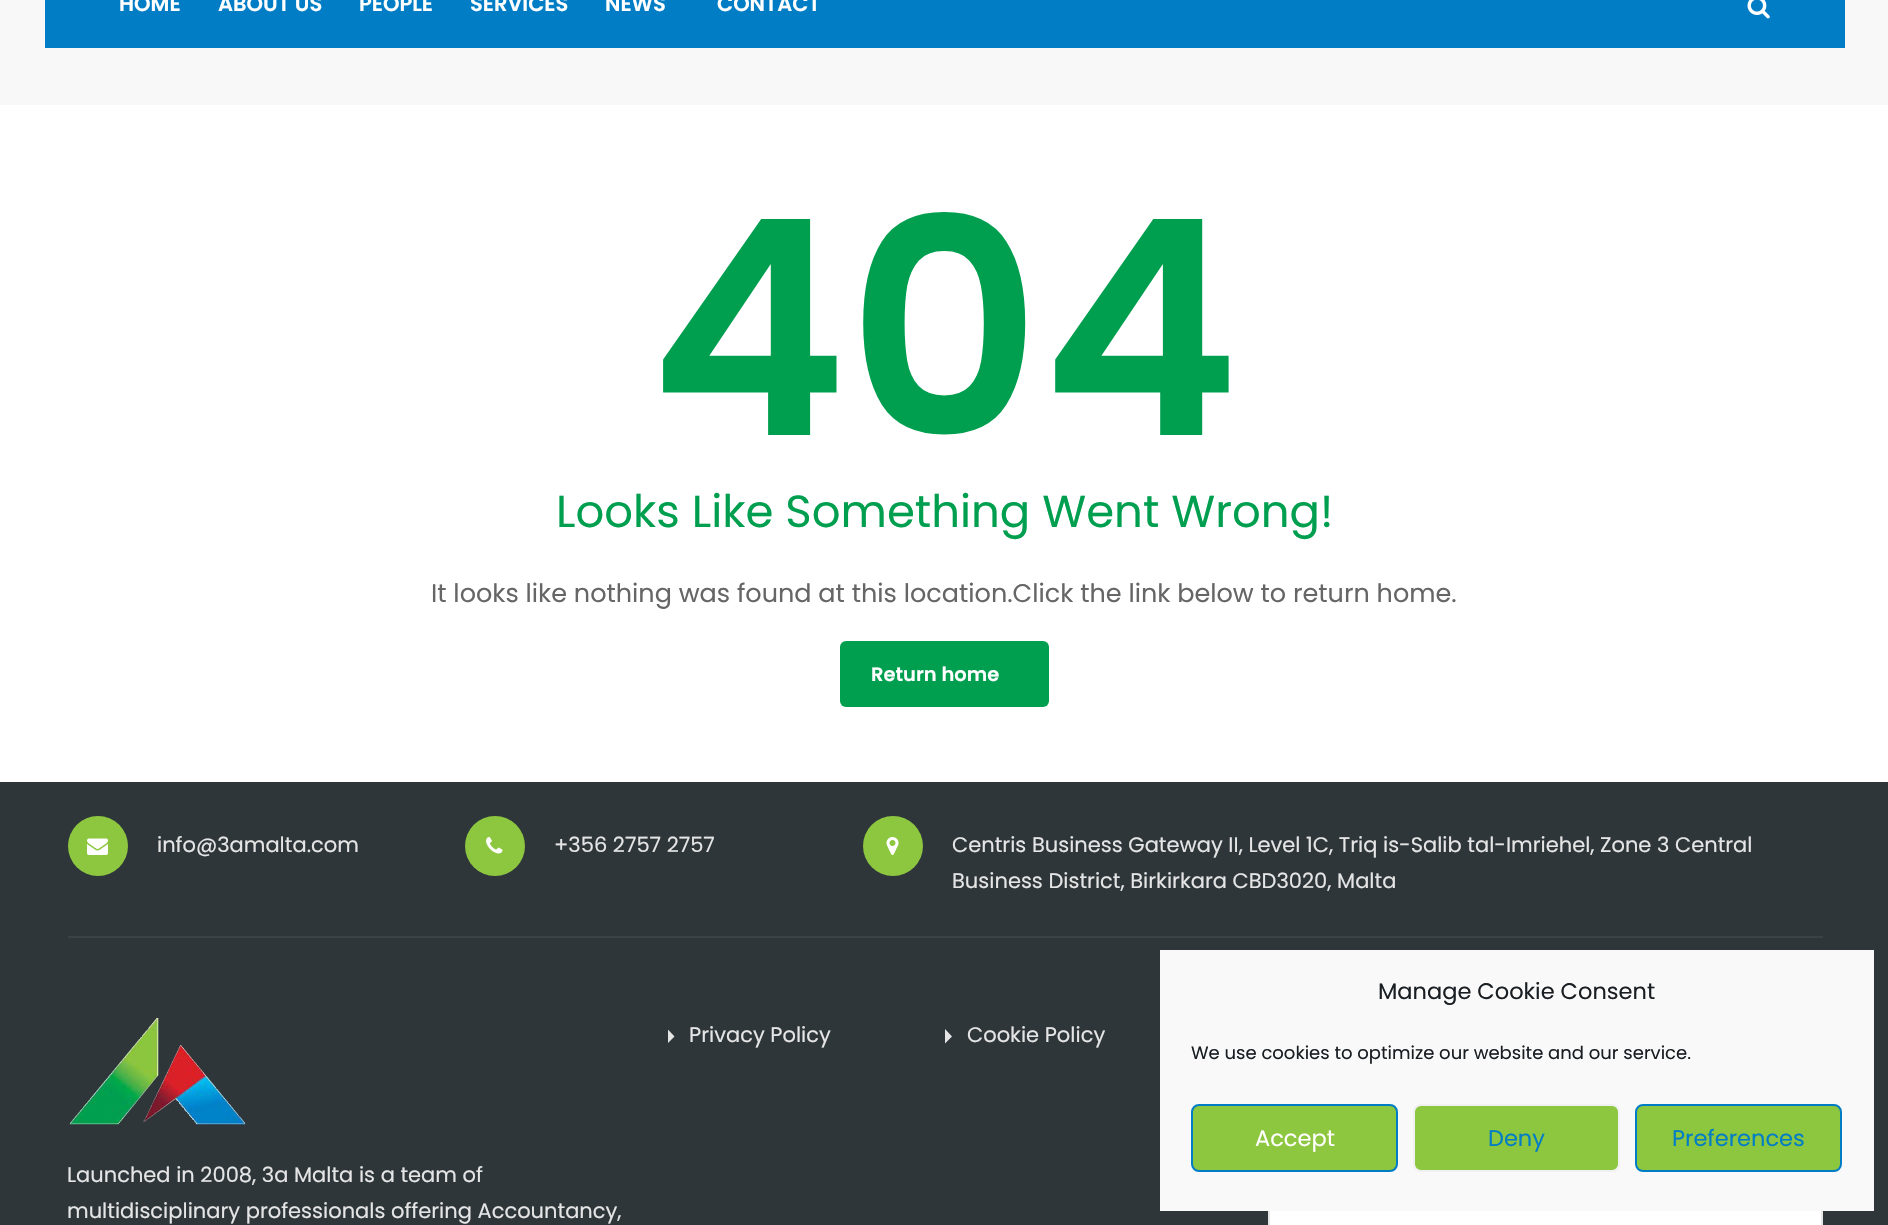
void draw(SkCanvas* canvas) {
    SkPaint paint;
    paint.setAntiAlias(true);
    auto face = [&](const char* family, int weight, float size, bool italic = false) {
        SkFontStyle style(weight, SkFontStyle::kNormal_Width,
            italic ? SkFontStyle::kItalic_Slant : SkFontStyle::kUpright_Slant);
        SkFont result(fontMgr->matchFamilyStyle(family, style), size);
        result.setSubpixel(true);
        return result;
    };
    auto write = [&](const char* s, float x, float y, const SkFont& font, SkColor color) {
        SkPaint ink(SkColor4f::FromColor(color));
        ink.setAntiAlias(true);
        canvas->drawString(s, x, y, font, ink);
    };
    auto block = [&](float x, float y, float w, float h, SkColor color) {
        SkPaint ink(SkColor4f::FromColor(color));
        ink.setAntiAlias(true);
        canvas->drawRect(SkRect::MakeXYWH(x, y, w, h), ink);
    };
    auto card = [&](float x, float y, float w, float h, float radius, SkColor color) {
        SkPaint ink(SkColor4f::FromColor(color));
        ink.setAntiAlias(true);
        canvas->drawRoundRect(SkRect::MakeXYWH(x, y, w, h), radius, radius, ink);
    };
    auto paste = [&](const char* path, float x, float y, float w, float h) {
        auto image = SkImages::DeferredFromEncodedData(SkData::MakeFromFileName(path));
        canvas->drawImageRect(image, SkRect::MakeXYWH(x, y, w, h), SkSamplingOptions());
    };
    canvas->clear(SK_ColorWHITE);
    block(0, 0, 1888, 105, SkColorSetRGB(248, 248, 248));
    block(45, 0, 1800, 48, SkColorSetRGB(0, 125, 197));
    auto kFont1 = face("Poppins", 600, 21);
    write("HOME", 119, 11, kFont1, SK_ColorWHITE);
    write("ABOUT US", 218, 11, kFont1, SK_ColorWHITE);
    write("PEOPLE", 359, 11, kFont1, SK_ColorWHITE);
    write("SERVICES", 470, 11, kFont1, SK_ColorWHITE);
    write("NEWS", 605, 11, kFont1, SK_ColorWHITE);
    write("CONTACT", 717, 11, kFont1, SK_ColorWHITE);
    paste("pic1.png", 1747, 0, 23, 19);
    auto kFont2 = face("Poppins", 600, 300);
    write("404", 649, 435, kFont2, SkColorSetRGB(0, 159, 79));
    auto kFont3 = face("Poppins", 400, 45);
    write("Looks Like Something Went Wrong!", 556, 527, kFont3, SkColorSetRGB(0, 159, 79));
    auto kFont4 = face("Poppins", 400, 25.5f);
    write("It looks like nothing was found at this location.Click the link below to return home.", 431, 602, kFont4, SkColorSetRGB(102, 102, 102));
    card(840, 641, 209, 66, 6, SkColorSetRGB(0, 159, 79));
    auto kFont5 = face("Poppins", 600, 19.5f);
    write("Return home", 871, 681, kFont5, SK_ColorWHITE);
    block(0, 782, 1888, 443, SkColorSetRGB(46, 54, 58));
    block(68, 936, 1755, 2, SkColorSetRGB(57, 67, 72));
    paint.setColor(SkColorSetRGB(141, 198, 63));
    canvas->drawCircle(98, 846, 30, paint);
    paste("pic2.png", 87, 838, 21, 17);
    auto kFont6 = face("Poppins", 400, 21);
    write("info@3amalta.com", 157, 852, kFont6, SkColorSetRGB(229, 229, 229));
    canvas->drawCircle(495, 846, 30, paint);
    paste("pic3.png", 486, 837, 17, 17);
    write("+356 2757 2757", 554, 852, kFont6, SkColorSetRGB(229, 229, 229));
    canvas->drawCircle(893, 846, 30, paint);
    paste("pic4.png", 886, 837, 13, 18);
    write("Centris Business Gateway II, Level 1C, Triq is-Salib tal-Imriehel, Zone 3 Central", 952, 852, kFont6, SkColorSetRGB(229, 229, 229));
    write("Business District, Birkirkara CBD3020, Malta", 952, 888, kFont6, SkColorSetRGB(229, 229, 229));
    canvas->save();
    canvas->clipRect(SkRect::MakeXYWH(668, 1008, 555, 53));
    paint.setColor(SkColorSetRGB(229, 229, 229));
    canvas->drawPath(SkPathBuilder().moveTo(667.5f, 1029).lineTo(674.5f, 1036.5f).lineTo(667.5f, 1043.5f).close().detach(), paint);
    canvas->restore();
    write("Privacy Policy", 689, 1042, kFont6, SkColorSetRGB(229, 229, 229));
    canvas->drawPath(SkPathBuilder().moveTo(945, 1029).lineTo(952, 1036.5f).lineTo(945, 1043.5f).close().detach(), paint);
    write("Cookie Policy", 967, 1042, kFont6, SkColorSetRGB(229, 229, 229));
    paste("pic5.png", 69, 1018, 177, 107);
    write("Launched in 2008, 3a Malta is a team of", 67, 1182, kFont6, SkColorSetRGB(229, 229, 229));
    write("multidisciplinary professionals offering Accountancy,", 67, 1218, kFont6, SkColorSetRGB(229, 229, 229));
    block(1270, 1211, 551, 14, SK_ColorWHITE);
    paint.setStyle(SkPaint::kStroke_Style);
    paint.setStrokeWidth(2);
    paint.setColor(SkColorSetRGB(230, 230, 230));
    canvas->drawRect(SkRect::MakeXYWH(1269, 1198, 553, 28), paint);
    block(1160, 950, 714, 261, SkColorSetRGB(249, 249, 249));
    auto kFont7 = face("Poppins", 400, 22.5f);
    write("Manage Cookie Consent", 1378, 999, kFont7, SkColorSetRGB(25, 30, 35));
    auto kFont8 = face("Poppins", 400, 18);
    write("We use cookies to optimize our website and our service.", 1191, 1059, kFont8, SkColorSetRGB(25, 30, 35));
    paint.setStyle(SkPaint::kFill_Style);
    paint.setColor(SkColorSetRGB(141, 198, 63));
    canvas->drawRoundRect(SkRect::MakeXYWH(1192, 1105, 205, 66), 7, 7, paint);
    paint.setStyle(SkPaint::kStroke_Style);
    paint.setColor(SkColorSetRGB(0, 125, 197));
    canvas->drawRoundRect(SkRect::MakeXYWH(1192, 1105, 205, 66), 7, 7, paint);
    write("Accept", 1255, 1146, kFont7, SK_ColorWHITE);
    paint.setStyle(SkPaint::kFill_Style);
    paint.setColor(SkColorSetRGB(141, 198, 63));
    canvas->drawRoundRect(SkRect::MakeXYWH(1414, 1105, 205, 66), 7, 7, paint);
    paint.setStyle(SkPaint::kStroke_Style);
    paint.setColor(SkColorSetRGB(241, 241, 241));
    canvas->drawRoundRect(SkRect::MakeXYWH(1414, 1105, 205, 66), 7, 7, paint);
    write("Deny", 1488, 1146, kFont7, SkColorSetRGB(0, 125, 197));
    paint.setStyle(SkPaint::kFill_Style);
    paint.setColor(SkColorSetRGB(141, 198, 63));
    canvas->drawRoundRect(SkRect::MakeXYWH(1636, 1105, 205, 66), 7, 7, paint);
    paint.setStyle(SkPaint::kStroke_Style);
    paint.setColor(SkColorSetRGB(0, 125, 197));
    canvas->drawRoundRect(SkRect::MakeXYWH(1636, 1105, 205, 66), 7, 7, paint);
    write("Preferences", 1672, 1146, kFont7, SkColorSetRGB(0, 125, 197));
}
